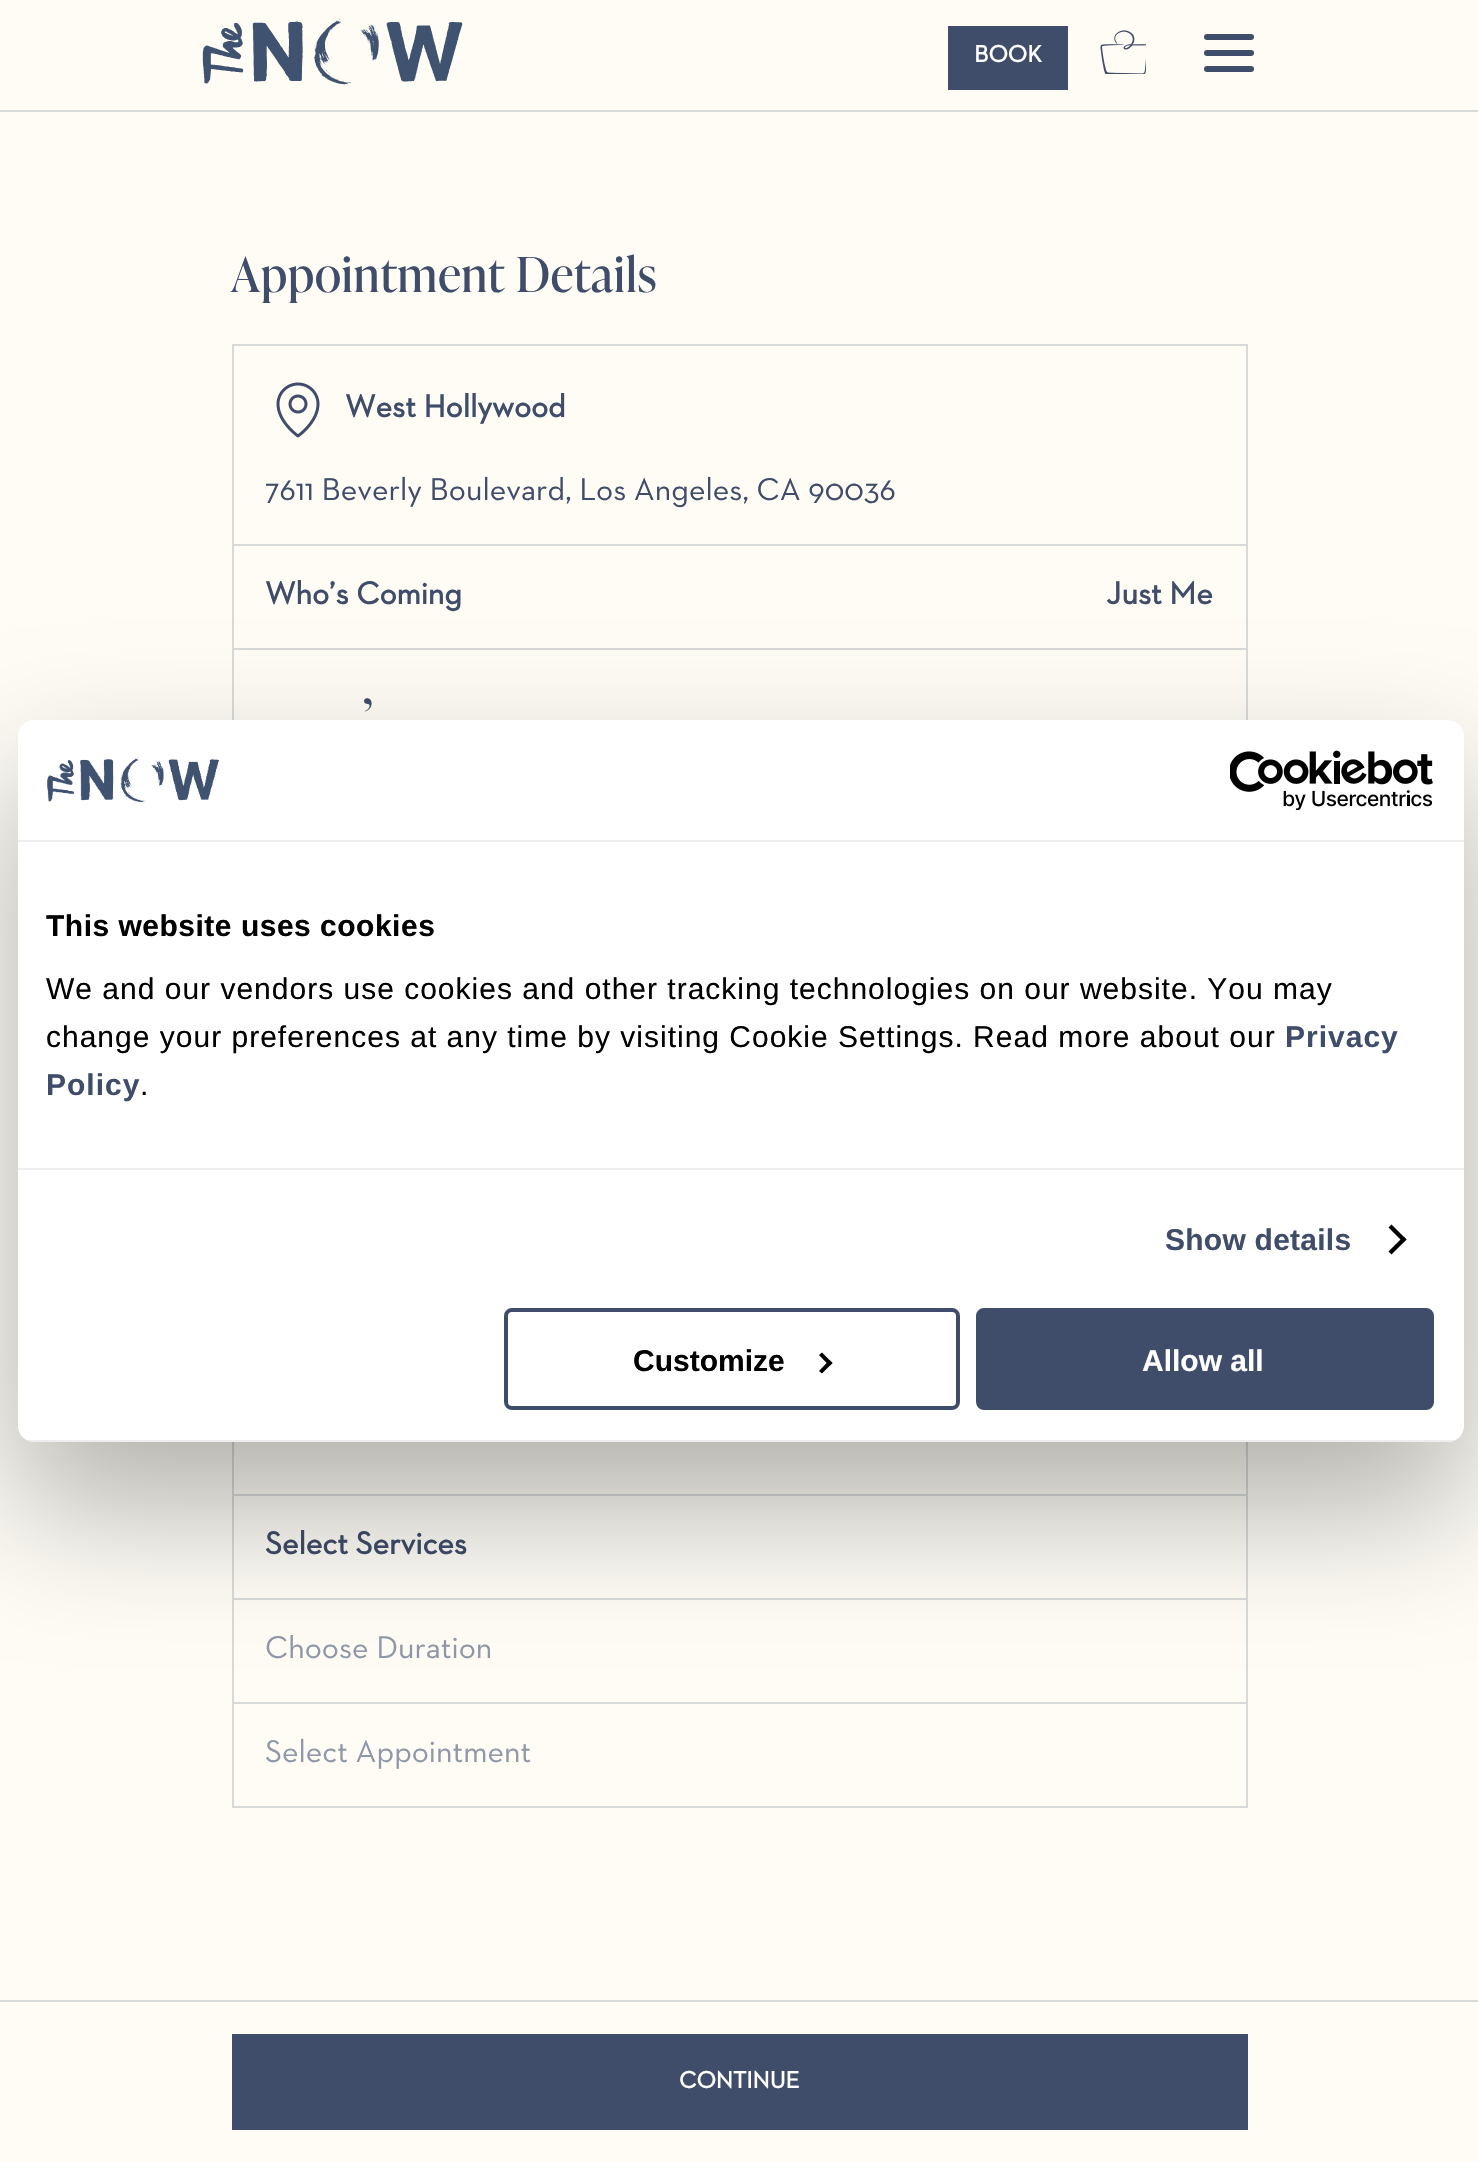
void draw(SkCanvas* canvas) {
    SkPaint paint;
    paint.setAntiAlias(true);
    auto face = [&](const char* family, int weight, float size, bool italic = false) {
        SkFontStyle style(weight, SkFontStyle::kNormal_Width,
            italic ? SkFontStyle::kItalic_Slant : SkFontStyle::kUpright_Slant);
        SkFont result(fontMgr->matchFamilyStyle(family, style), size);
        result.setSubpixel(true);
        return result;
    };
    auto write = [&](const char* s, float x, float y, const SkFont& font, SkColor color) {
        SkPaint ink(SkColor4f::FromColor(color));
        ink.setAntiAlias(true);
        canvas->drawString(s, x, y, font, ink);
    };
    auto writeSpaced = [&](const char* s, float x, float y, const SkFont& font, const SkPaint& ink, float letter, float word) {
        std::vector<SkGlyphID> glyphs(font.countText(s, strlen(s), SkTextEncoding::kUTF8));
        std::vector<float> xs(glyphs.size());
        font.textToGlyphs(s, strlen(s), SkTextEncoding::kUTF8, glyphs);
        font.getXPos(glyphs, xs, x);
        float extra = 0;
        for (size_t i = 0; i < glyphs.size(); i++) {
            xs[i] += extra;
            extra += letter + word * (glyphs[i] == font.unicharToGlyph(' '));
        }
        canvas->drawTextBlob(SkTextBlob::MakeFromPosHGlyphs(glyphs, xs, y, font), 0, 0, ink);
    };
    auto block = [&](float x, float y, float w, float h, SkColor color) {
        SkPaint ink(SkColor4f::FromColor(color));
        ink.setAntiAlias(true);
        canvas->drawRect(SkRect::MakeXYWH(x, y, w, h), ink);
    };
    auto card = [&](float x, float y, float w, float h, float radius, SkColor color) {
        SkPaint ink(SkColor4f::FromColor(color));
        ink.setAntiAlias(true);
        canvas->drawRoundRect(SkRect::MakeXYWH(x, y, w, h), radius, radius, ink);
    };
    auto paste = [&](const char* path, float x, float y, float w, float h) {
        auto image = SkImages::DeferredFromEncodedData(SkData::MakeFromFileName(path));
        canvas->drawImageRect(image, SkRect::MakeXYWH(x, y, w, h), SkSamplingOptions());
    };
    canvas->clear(SkColorSetRGB(254, 252, 245));
    block(0, 110, 1478, 2, SkColorSetRGB(216, 217, 217));
    paste("pic1.png", 202, 18, 261, 67);
    block(948, 26, 120, 64, SkColorSetRGB(64, 77, 106));
    auto kFont1 = face("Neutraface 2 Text", 700, 24);
    write("BOOK", 974, 62, kFont1, SK_ColorWHITE);
    paste("pic2.png", 1100, 30, 46, 44);
    card(1204, 34, 50, 6, 3, SkColorSetRGB(64, 77, 106));
    card(1204, 50, 50, 6, 3, SkColorSetRGB(64, 77, 106));
    card(1204, 66, 50, 6, 3, SkColorSetRGB(64, 77, 106));
    auto kFont2 = face("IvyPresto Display", 400, 48);
    paint.setColor(SkColorSetRGB(64, 77, 106));
    writeSpaced("Appointment Details", 231, 292, kFont2, paint, 1, 0);
    block(232, 344, 1016, 2, SkColorSetRGB(216, 217, 217));
    block(1246, 344, 2, 1464, SkColorSetRGB(216, 217, 217));
    block(232, 344, 2, 1464, SkColorSetRGB(216, 217, 217));
    block(234, 544, 1012, 2, SkColorSetRGB(216, 217, 217));
    paste("pic3.png", 276, 382, 44, 56);
    auto kFont3 = face("Neutraface 2 Text", 700, 32);
    write("West Hollywood", 345, 417, kFont3, SkColorSetRGB(64, 77, 106));
    auto kFont4 = face("Neutraface 2 Text", 400, 32);
    write("7611 Beverly Boulevard, Los Angeles, CA 90036", 265, 500, kFont4, SkColorSetRGB(64, 77, 106));
    block(234, 648, 1012, 2, SkColorSetRGB(216, 217, 217));
    write("Who’s Coming", 265, 604, kFont3, SkColorSetRGB(64, 77, 106));
    write("Just Me", 1106, 604, kFont3, SkColorSetRGB(64, 77, 106));
    block(234, 1494, 1012, 2, SkColorSetRGB(216, 217, 217));
    writeSpaced("’", 363, 734, kFont2, paint, 1, 0);
    block(234, 1598, 1012, 2, SkColorSetRGB(216, 217, 217));
    write("Select Services", 265, 1554, kFont3, SkColorSetRGB(64, 77, 106));
    block(234, 1702, 1012, 2, SkColorSetRGB(216, 217, 217));
    write("Choose Duration", 265, 1658, kFont4, SkColorSetRGB(143, 152, 168));
    block(234, 1806, 1012, 2, SkColorSetRGB(216, 217, 217));
    write("Select Appointment", 265, 1762, kFont4, SkColorSetRGB(143, 152, 168));
    block(0, 2000, 1478, 2, SkColorSetRGB(216, 217, 217));
    block(232, 2034, 1016, 96, SkColorSetRGB(64, 77, 106));
    write("CONTINUE", 679, 2088, kFont1, SK_ColorWHITE);
    paint.setColor(SkColorSetARGB(77, 0, 0, 0));
    paint.setMaskFilter(SkMaskFilter::MakeBlur(kNormal_SkBlurStyle, 68));
    canvas->drawRoundRect(SkRect::MakeXYWH(18, 784, 1446, 722), 16, 16, paint);
    paint.setMaskFilter(nullptr);
    card(18, 720, 1446, 722, 16, SK_ColorWHITE);
    block(18, 840, 1446, 2, SkColorSetRGB(238, 238, 238));
    paste("pic4.png", 47, 757, 172, 45);
    paste("pic5.png", 1230, 750, 203, 60);
    block(18, 1168, 1446, 2, SkColorSetRGB(238, 238, 238));
    auto kFont5 = face("Liberation Sans", 700, 30);
    paint.setColor(SK_ColorBLACK);
    writeSpaced("This website uses cookies", 46, 936, kFont5, paint, 0.5f, 0);
    auto kFont6 = face("Liberation Sans", 400, 30);
    writeSpaced("We and our vendors use cookies and other tracking technologies on our website. You may", 46, 999, kFont6, paint, 1, 0);
    writeSpaced("change your preferences at any time by visiting Cookie Settings. Read more about our", 46, 1047, kFont6, paint, 1, 0);
    paint.setColor(SkColorSetRGB(64, 77, 106));
    writeSpaced("Privacy", 1285, 1047, kFont5, paint, 1, 0);
    writeSpaced("Policy", 46, 1095, kFont5, paint, 1, 0);
    paint.setColor(SK_ColorBLACK);
    writeSpaced(".", 140, 1095, kFont6, paint, 1, 0);
    paint.setColor(SkColorSetRGB(64, 77, 106));
    writeSpaced("Show details", 1165, 1250, kFont5, paint, 0.25f, 0);
    paint.setColor(SK_ColorBLACK);
    canvas->drawPath(SkPathBuilder().moveTo(1391.5f, 1224.5f).lineTo(1406.5f, 1239.5f).lineTo(1403.5f, 1242.5f).lineTo(1388.5f, 1227.5f).close().detach(), paint);
    canvas->drawPath(SkPathBuilder().moveTo(1403.5f, 1236.5f).lineTo(1406.5f, 1239.5f).lineTo(1391.5f, 1254.5f).lineTo(1388.5f, 1251.5f).close().detach(), paint);
    canvas->save();
    canvas->clipPath(SkPathBuilder().moveTo(34, 720).lineTo(1448, 720).cubicTo(1457, 720, 1464, 727, 1464, 736).lineTo(1464, 1426).cubicTo(1464, 1435, 1457, 1442, 1448, 1442).lineTo(34, 1442).cubicTo(25, 1442, 18, 1435, 18, 1426).lineTo(18, 736).cubicTo(18, 727, 25, 720, 34, 720).close().detach(), true);
    block(18, 1440, 1446, 2, SkColorSetRGB(238, 238, 238));
    canvas->restore();
    paint.setStyle(SkPaint::kStroke_Style);
    paint.setStrokeWidth(4);
    paint.setColor(SkColorSetRGB(64, 77, 106));
    canvas->drawRoundRect(SkRect::MakeXYWH(506, 1310, 452, 98), 6, 6, paint);
    write("Customize", 633, 1371, kFont5, SK_ColorBLACK);
    paint.setStyle(SkPaint::kFill_Style);
    paint.setColor(SK_ColorBLACK);
    canvas->drawPath(SkPathBuilder().moveTo(822, 1352.5f).lineTo(832.5f, 1363).lineTo(829.5f, 1366).lineTo(819, 1355).close().detach(), paint);
    canvas->drawPath(SkPathBuilder().moveTo(829.5f, 1360).lineTo(832.5f, 1363).lineTo(822, 1373.5f).lineTo(819, 1371).close().detach(), paint);
    paint.setColor(SkColorSetRGB(64, 77, 106));
    canvas->drawRoundRect(SkRect::MakeXYWH(978, 1310, 454, 98), 6, 6, paint);
    paint.setStyle(SkPaint::kStroke_Style);
    canvas->drawRoundRect(SkRect::MakeXYWH(978, 1310, 454, 98), 6, 6, paint);
    write("Allow all", 1142, 1371, kFont5, SK_ColorWHITE);
}
